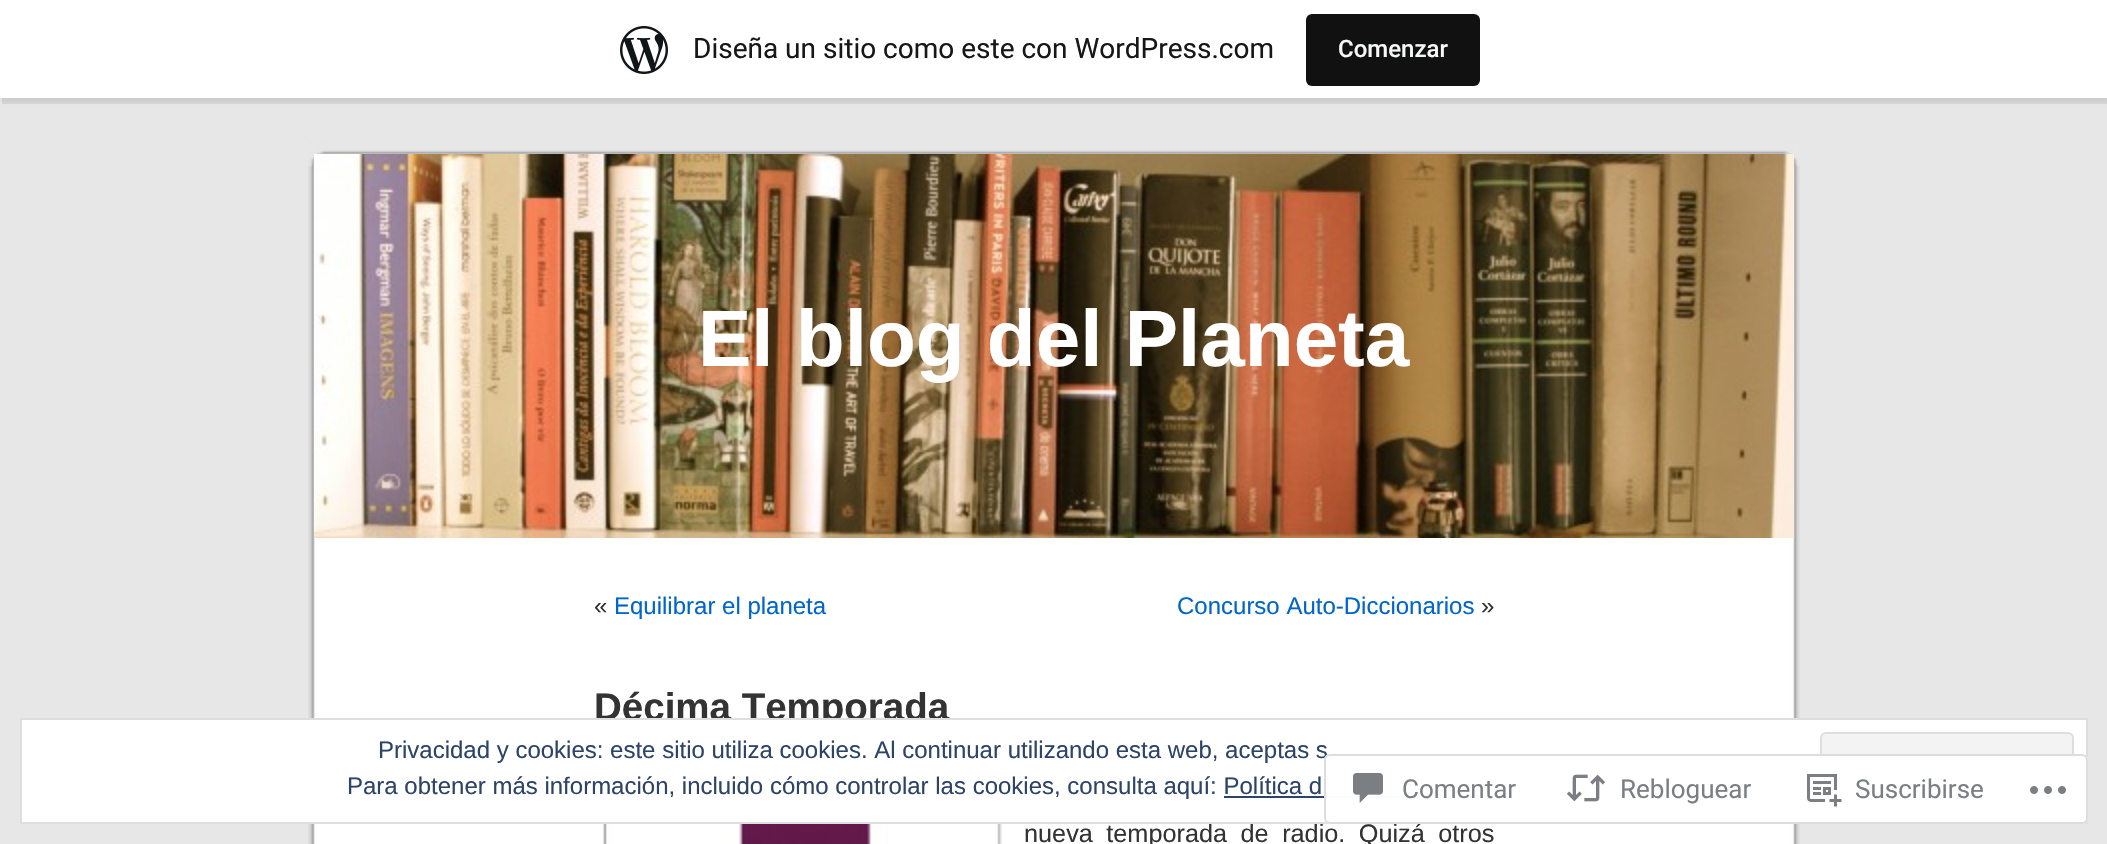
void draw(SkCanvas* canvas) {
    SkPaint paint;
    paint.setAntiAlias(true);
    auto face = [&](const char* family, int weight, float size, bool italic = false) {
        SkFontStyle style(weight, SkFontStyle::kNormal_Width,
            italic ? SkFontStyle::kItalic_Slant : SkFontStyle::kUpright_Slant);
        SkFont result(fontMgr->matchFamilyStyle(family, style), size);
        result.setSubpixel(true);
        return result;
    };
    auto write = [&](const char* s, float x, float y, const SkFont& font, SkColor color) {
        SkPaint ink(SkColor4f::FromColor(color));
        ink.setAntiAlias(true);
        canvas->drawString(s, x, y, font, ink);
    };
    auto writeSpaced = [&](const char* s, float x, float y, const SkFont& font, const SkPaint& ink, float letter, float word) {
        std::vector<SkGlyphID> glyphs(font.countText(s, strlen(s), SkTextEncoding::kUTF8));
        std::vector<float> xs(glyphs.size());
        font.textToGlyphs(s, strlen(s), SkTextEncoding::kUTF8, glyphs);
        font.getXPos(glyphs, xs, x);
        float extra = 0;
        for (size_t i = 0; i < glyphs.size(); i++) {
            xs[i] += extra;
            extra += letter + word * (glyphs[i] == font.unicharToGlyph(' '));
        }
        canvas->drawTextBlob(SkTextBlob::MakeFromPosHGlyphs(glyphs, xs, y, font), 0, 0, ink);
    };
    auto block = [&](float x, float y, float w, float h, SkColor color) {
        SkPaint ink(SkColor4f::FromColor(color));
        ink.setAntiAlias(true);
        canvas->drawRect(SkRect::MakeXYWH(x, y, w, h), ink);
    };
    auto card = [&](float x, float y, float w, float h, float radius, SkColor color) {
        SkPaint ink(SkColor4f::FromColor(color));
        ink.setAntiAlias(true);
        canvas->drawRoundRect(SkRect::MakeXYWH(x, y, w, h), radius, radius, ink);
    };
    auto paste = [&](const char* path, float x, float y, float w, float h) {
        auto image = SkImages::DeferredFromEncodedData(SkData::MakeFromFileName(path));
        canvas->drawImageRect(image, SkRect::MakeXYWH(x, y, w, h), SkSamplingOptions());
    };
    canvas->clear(SkColorSetRGB(231, 231, 231));
    paint.setColor(SkColorSetARGB(13, 0, 0, 0));
    paint.setMaskFilter(SkMaskFilter::MakeBlur(kNormal_SkBlurStyle, 2));
    canvas->drawRect(SkRect::MakeXYWH(0, 2, 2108, 98), paint);
    paint.setMaskFilter(nullptr);
    paint.setColor(SkColorSetARGB(20, 0, 0, 0));
    canvas->drawPath(SkPathBuilder().moveTo(2, 98).lineTo(2, 104).lineTo(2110, 104).lineTo(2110, 6).lineTo(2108, 6).lineTo(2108, 98).close().detach(), paint);
    block(0, 0, 2107, 98, SK_ColorWHITE);
    paste("pic1.png", 620, 26, 48, 48);
    auto kFont1 = face("Roboto", 400, 28);
    write("Diseña un sitio como este con WordPress.com", 693, 58, kFont1, SkColorSetRGB(23, 23, 23));
    card(1306, 14, 174, 72, 6, SkColorSetRGB(17, 17, 17));
    auto kFont2 = face("Roboto", 500, 24);
    write("Comenzar", 1338, 57, kFont2, SkColorSetRGB(246, 247, 247));
    paste("pic2.png", 308, 538, 1492, 306);
    paste("pic3.png", 308, 138, 1492, 400);
    paste("pic4.png", 314, 154, 1480, 384);
    auto kFont3 = face("Liberation Sans", 700, 80);
    write("El blog del Planeta", 698, 366, kFont3, SK_ColorWHITE);
    auto kFont4 = face("Liberation Sans", 400, 24);
    write("«", 594, 614, kFont4, SkColorSetRGB(51, 51, 51));
    write("Equilibrar el planeta", 614, 614, kFont4, SkColorSetRGB(0, 102, 204));
    write("Concurso Auto-Diccionarios", 1177, 614, kFont4, SkColorSetRGB(0, 102, 204));
    write("»", 1481, 614, kFont4, SkColorSetRGB(51, 51, 51));
    auto kFont5 = face("Liberation Sans", 700, 38.5f);
    write("Décima Temporada", 594, 720, kFont5, SkColorSetRGB(51, 51, 51));
    paste("pic5.png", 602, 824, 400, 20);
    auto kFont6 = face("Liberation Sans", 400, 25.25f);
    paint.setColor(SkColorSetRGB(51, 51, 51));
    writeSpaced("nueva temporada de radio. Quizá otros", 1024, 842, kFont6, paint, 0, 6.5f);
    paint.setColor(SK_ColorWHITE);
    canvas->drawRect(SkRect::MakeXYWH(21, 719, 2066, 104), paint);
    paint.setStyle(SkPaint::kStroke_Style);
    paint.setStrokeWidth(2);
    paint.setColor(SkColorSetRGB(222, 222, 222));
    canvas->drawRect(SkRect::MakeXYWH(21, 719, 2066, 104), paint);
    write("Privacidad y cookies: este sitio utiliza cookies. Al continuar utilizando esta web, aceptas s", 378, 758, kFont4, SkColorSetRGB(46, 68, 103));
    paint.setStyle(SkPaint::kFill_Style);
    paint.setColor(SkColorSetRGB(243, 243, 243));
    canvas->drawRoundRect(SkRect::MakeXYWH(1821, 733, 252, 76), 5, 5, paint);
    paint.setStyle(SkPaint::kStroke_Style);
    paint.setColor(SkColorSetRGB(222, 222, 222));
    canvas->drawRoundRect(SkRect::MakeXYWH(1821, 733, 252, 76), 5, 5, paint);
    write("Para obtener más información, incluido cómo controlar las cookies, consulta aquí: Política d", 347, 794, kFont4, SkColorSetRGB(46, 68, 103));
    block(1224, 796, 200, 2, SkColorSetRGB(46, 68, 103));
    card(1324, 754, 764, 70, 6, SkColorSetARGB(250, 255, 255, 255));
    paint.setColor(SkColorSetARGB(250, 220, 220, 222));
    canvas->drawRoundRect(SkRect::MakeXYWH(1325, 755, 762, 68), 5, 5, paint);
    paste("pic6.png", 1353, 773, 30, 30);
    auto kFont7 = face("Roboto", 400, 26);
    write("Comentar", 1402, 798, kFont7, SkColorSetRGB(123, 127, 132));
    paste("pic7.png", 1566, 774, 40, 28);
    write("Rebloguear", 1620, 798, kFont7, SkColorSetRGB(123, 127, 132));
    paste("pic8.png", 1807, 774, 35, 33);
    write("Suscribirse", 1855, 798, kFont7, SkColorSetRGB(123, 127, 132));
    paste("pic9.png", 2030, 786, 36, 8);
}
